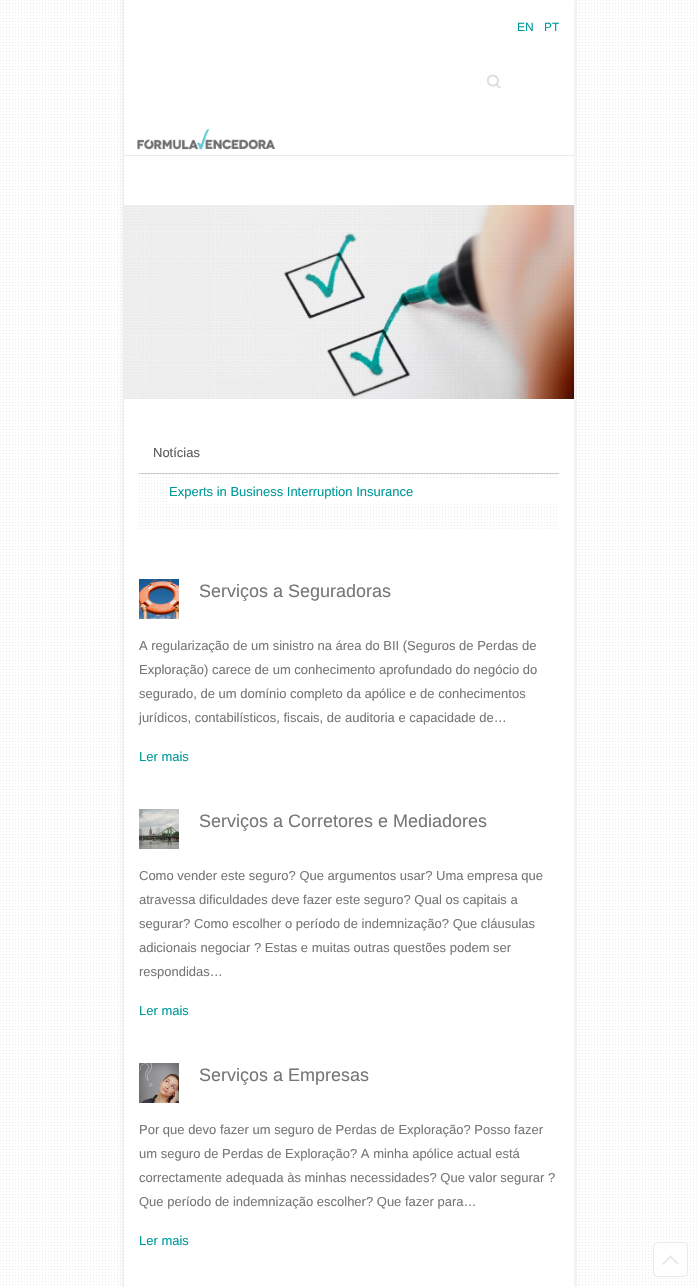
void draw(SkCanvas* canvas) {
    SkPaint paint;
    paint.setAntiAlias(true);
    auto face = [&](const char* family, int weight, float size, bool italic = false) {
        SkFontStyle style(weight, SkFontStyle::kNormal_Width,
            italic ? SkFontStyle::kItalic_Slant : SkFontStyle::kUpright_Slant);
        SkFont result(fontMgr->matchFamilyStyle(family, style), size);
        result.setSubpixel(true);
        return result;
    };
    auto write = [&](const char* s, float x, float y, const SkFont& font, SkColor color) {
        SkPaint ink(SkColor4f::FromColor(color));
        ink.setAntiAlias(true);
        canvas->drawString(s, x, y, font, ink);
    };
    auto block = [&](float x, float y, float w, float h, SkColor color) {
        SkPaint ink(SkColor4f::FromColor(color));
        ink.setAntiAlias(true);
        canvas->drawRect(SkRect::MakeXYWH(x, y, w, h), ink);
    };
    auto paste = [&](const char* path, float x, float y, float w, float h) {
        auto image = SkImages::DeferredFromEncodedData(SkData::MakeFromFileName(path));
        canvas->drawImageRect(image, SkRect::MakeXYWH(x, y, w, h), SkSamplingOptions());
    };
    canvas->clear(SK_ColorWHITE);
    paste("pic1.png", 0, 0, 698, 1287);
    paint.setColor(SkColorSetRGB(221, 221, 221));
    paint.setMaskFilter(SkMaskFilter::MakeBlur(kNormal_SkBlurStyle, 2.5f));
    canvas->drawRect(SkRect::MakeXYWH(124, 0, 450, 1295), paint);
    paint.setMaskFilter(nullptr);
    block(124, 0, 450, 1287, SK_ColorWHITE);
    auto kFont1 = face("Liberation Sans", 400, 12);
    write("EN", 517, 31, kFont1, SkColorSetRGB(0, 153, 153));
    write("PT", 544, 31, kFont1, SkColorSetRGB(0, 153, 153));
    paste("pic2.png", 487, 74, 14, 15);
    paste("pic3.png", 137, 128, 138, 22);
    block(124, 155, 450, 1, SkColorSetRGB(234, 234, 234));
    paste("pic4.png", 124, 205, 450, 194);
    paste("pic5.png", 139, 474, 418, 55);
    block(139, 473, 420, 1, SkColorSetRGB(204, 204, 204));
    auto kFont2 = face("Liberation Sans", 400, 13);
    write("Notícias", 153, 457, kFont2, SkColorSetRGB(91, 91, 91));
    block(169, 480, 388, 22, SK_ColorWHITE);
    write("Experts in Business Interruption Insurance", 169, 496, kFont2, SkColorSetRGB(0, 153, 153));
    paste("pic6.png", 139, 579, 40, 40);
    auto kFont3 = face("Liberation Sans", 400, 18);
    write("Serviços a Seguradoras", 199, 597, kFont3, SkColorSetRGB(119, 119, 119));
    write("A regularização de um sinistro na área do BII (Seguros de Perdas de", 139, 650, kFont2, SkColorSetRGB(119, 119, 119));
    write("Exploração) carece de um conhecimento aprofundado do negócio do", 139, 674, kFont2, SkColorSetRGB(119, 119, 119));
    write("segurado, de um domínio completo da apólice e de conhecimentos", 139, 698, kFont2, SkColorSetRGB(119, 119, 119));
    write("jurídicos, contabilísticos, fiscais, de auditoria e capacidade de…", 139, 722, kFont2, SkColorSetRGB(119, 119, 119));
    write("Ler mais", 139, 761, kFont2, SkColorSetRGB(0, 153, 153));
    paste("pic7.png", 139, 809, 40, 40);
    write("Serviços a Corretores e Mediadores", 199, 827, kFont3, SkColorSetRGB(119, 119, 119));
    write("Como vender este seguro? Que argumentos usar? Uma empresa que", 139, 880, kFont2, SkColorSetRGB(119, 119, 119));
    write("atravessa dificuldades deve fazer este seguro? Qual os capitais a", 139, 904, kFont2, SkColorSetRGB(119, 119, 119));
    write("segurar? Como escolher o período de indemnização? Que cláusulas", 139, 928, kFont2, SkColorSetRGB(119, 119, 119));
    write("adicionais negociar ? Estas e muitas outras questões podem ser", 139, 952, kFont2, SkColorSetRGB(119, 119, 119));
    write("respondidas…", 139, 976, kFont2, SkColorSetRGB(119, 119, 119));
    write("Ler mais", 139, 1015, kFont2, SkColorSetRGB(0, 153, 153));
    paste("pic8.png", 139, 1063, 40, 40);
    write("Serviços a Empresas", 199, 1081, kFont3, SkColorSetRGB(119, 119, 119));
    write("Por que devo fazer um seguro de Perdas de Exploração? Posso fazer", 139, 1134, kFont2, SkColorSetRGB(119, 119, 119));
    write("um seguro de Perdas de Exploração? A minha apólice actual está", 139, 1158, kFont2, SkColorSetRGB(119, 119, 119));
    write("correctamente adequada às minhas necessidades? Que valor segurar ?", 139, 1182, kFont2, SkColorSetRGB(119, 119, 119));
    write("Que período de indemnização escolher? Que fazer para…", 139, 1206, kFont2, SkColorSetRGB(119, 119, 119));
    write("Ler mais", 139, 1245, kFont2, SkColorSetRGB(0, 153, 153));
    paste("pic9.png", 653, 1242, 35, 35);
}
